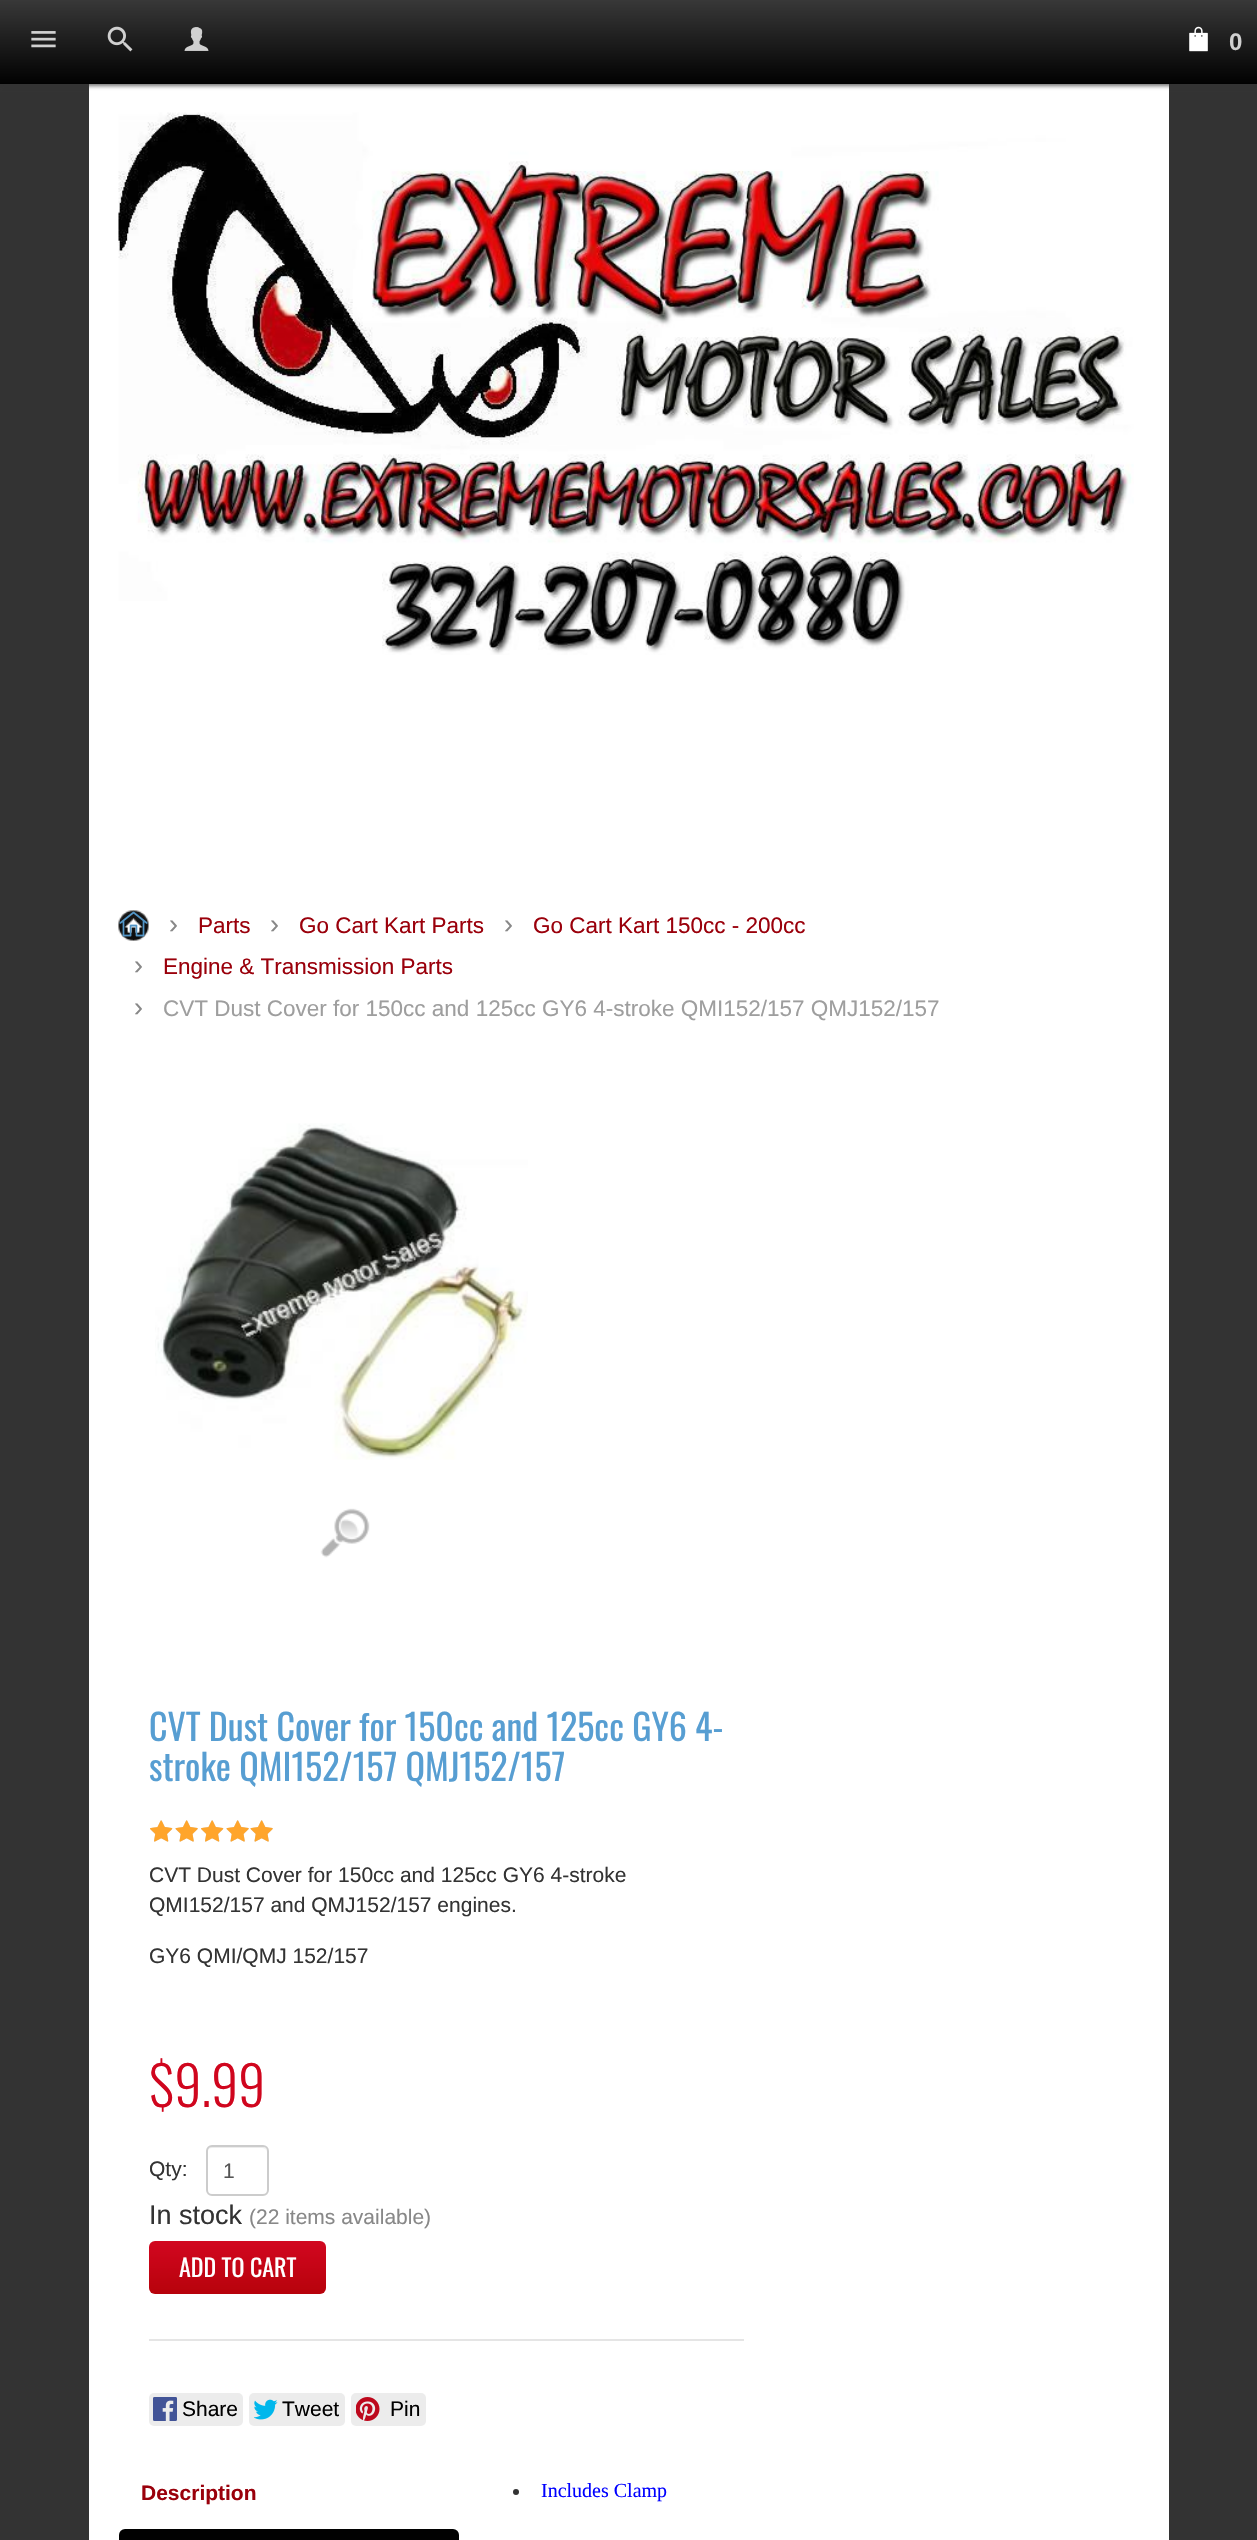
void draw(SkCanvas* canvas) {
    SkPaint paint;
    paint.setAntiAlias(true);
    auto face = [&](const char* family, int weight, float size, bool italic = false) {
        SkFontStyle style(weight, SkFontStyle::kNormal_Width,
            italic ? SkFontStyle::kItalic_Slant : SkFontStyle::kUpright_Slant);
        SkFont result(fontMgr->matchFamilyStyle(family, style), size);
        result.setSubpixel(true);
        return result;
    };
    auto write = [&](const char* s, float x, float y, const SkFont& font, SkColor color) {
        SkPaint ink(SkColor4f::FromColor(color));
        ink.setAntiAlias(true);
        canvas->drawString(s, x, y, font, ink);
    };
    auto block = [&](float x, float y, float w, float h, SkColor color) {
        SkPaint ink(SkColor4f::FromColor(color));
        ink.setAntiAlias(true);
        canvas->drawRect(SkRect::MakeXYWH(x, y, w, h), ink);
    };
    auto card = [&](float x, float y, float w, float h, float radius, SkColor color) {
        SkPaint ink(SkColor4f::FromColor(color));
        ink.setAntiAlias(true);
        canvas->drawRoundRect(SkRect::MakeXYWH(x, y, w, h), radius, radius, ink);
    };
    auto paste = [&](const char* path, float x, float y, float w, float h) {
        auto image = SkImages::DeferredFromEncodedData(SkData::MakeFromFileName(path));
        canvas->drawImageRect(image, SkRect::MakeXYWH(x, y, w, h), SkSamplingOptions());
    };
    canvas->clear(SkColorSetRGB(51, 51, 51));
    block(89, 84, 1080, 2456, SK_ColorWHITE);
    paint.setColor(SkColorSetARGB(179, 50, 50, 50));
    paint.setMaskFilter(SkMaskFilter::MakeBlur(kNormal_SkBlurStyle, 2));
    canvas->drawRect(SkRect::MakeXYWH(0, 2, 1257, 84), paint);
    paint.setMaskFilter(nullptr);
    {
        const SkColor colors[] = {SkColorSetRGB(56, 56, 56), SkColorSetRGB(1, 1, 1)};
        const float stops[] = {0, 1};
        const SkPoint ends[] = {{629, 0}, {629, 84}};
        paint.setShader(SkGradientShader::MakeLinear(ends, colors, stops, 2, SkTileMode::kClamp));
        paint.setAlpha(255);
    }
    canvas->drawRect(SkRect::MakeXYWH(0, 0, 1257, 84), paint);
    paste("pic1.png", 31, 31, 25, 17);
    paste("pic2.png", 107, 26, 26, 26);
    paste("pic3.png", 184, 27, 25, 24);
    paste("pic4.png", 1189, 26, 19, 26);
    auto kFont1 = face("Liberation Sans", 700, 24);
    write("0", 1229, 50, kFont1, SkColorSetRGB(208, 208, 208));
    paste("pic5.png", 118, 112, 1016, 543);
    paste("pic6.png", 118, 910, 31, 31);
    paste("pic7.png", 119, 911, 29, 26);
    auto kFont2 = face("Liberation Sans", 400, 27);
    write("›", 169, 933, kFont2, SkColorSetRGB(136, 136, 136));
    auto kFont3 = face("Liberation Sans", 400, 22.5f);
    write("Parts", 198, 933, kFont3, SkColorSetRGB(154, 0, 11));
    write("›", 270, 933, kFont2, SkColorSetRGB(136, 136, 136));
    write("Go Cart Kart Parts", 299, 933, kFont3, SkColorSetRGB(154, 0, 11));
    write("›", 504, 933, kFont2, SkColorSetRGB(136, 136, 136));
    write("Go Cart Kart 150cc - 200cc", 533, 933, kFont3, SkColorSetRGB(154, 0, 11));
    write("›", 134, 974, kFont2, SkColorSetRGB(136, 136, 136));
    write("Engine & Transmission Parts", 163, 974, kFont3, SkColorSetRGB(154, 0, 11));
    write("›", 134, 1016, kFont2, SkColorSetRGB(136, 136, 136));
    write("CVT Dust Cover for 150cc and 125cc GY6 4-stroke QMI152/157 QMJ152/157", 163, 1016, kFont3, SkColorSetRGB(158, 158, 158));
    paste("pic8.png", 155, 1123, 373, 337);
    paste("pic9.png", 320, 1508, 50, 50);
    auto kFont4 = face("Oswald", 400, 36);
    write("CVT Dust Cover for 150cc and 125cc GY6 4-", 149, 1741, kFont4, SkColorSetRGB(87, 158, 210));
    write("stroke QMI152/157 QMJ152/157", 149, 1781, kFont4, SkColorSetRGB(87, 158, 210));
    paste("pic10.png", 150, 1820, 23, 22);
    paste("pic11.png", 175, 1820, 23, 22);
    paste("pic10.png", 201, 1820, 23, 22);
    paste("pic11.png", 226, 1820, 23, 22);
    paste("pic11.png", 250, 1820, 23, 22);
    paste("pic12.png", 150, 1820, 23, 22);
    paste("pic13.png", 175, 1820, 23, 22);
    paste("pic12.png", 201, 1820, 23, 22);
    paste("pic13.png", 226, 1820, 23, 22);
    paste("pic13.png", 250, 1820, 23, 22);
    auto kFont5 = face("Liberation Sans", 400, 21);
    write("CVT Dust Cover for 150cc and 125cc GY6 4-stroke", 149, 1882, kFont5, SkColorSetRGB(51, 51, 51));
    write("QMI152/157 and QMJ152/157 engines.", 149, 1912, kFont5, SkColorSetRGB(51, 51, 51));
    write("GY6 QMI/QMJ 152/157", 149, 1963, kFont5, SkColorSetRGB(51, 51, 51));
    auto kFont6 = face("Oswald", 300, 54);
    write("$9.99", 149, 2107, kFont6, SkColorSetRGB(208, 6, 30));
    write("Qty:", 149, 2176, kFont5, SkColorSetRGB(51, 51, 51));
    paint.setShader(nullptr);
    paint.setColor(SkColorSetRGB(236, 236, 236));
    canvas->drawPath(SkPathBuilder().moveTo(212, 2148).lineTo(262, 2148).cubicTo(265, 2148, 267, 2150, 267, 2152).cubicTo(267, 2149, 265, 2147, 262, 2147).lineTo(212, 2147).cubicTo(209, 2147, 207, 2149, 207, 2152).cubicTo(207, 2150, 209, 2148, 212, 2148).close().detach(), paint);
    paint.setStyle(SkPaint::kStroke_Style);
    paint.setStrokeWidth(2);
    paint.setColor(SkColorSetRGB(204, 204, 204));
    canvas->drawRoundRect(SkRect::MakeXYWH(207, 2146, 61, 49), 5, 5, paint);
    write("1", 223, 2178, kFont5, SkColorSetRGB(85, 85, 85));
    write("In stock", 149, 2224, kFont2, SkColorSetRGB(51, 51, 51));
    write("(22 items available)", 249, 2224, kFont5, SkColorSetRGB(136, 136, 136));
    paint.setStyle(SkPaint::kFill_Style);
    {
        const SkColor colors[] = {SkColorSetRGB(210, 7, 32), SkColorSetRGB(183, 2, 11)};
        const float stops[] = {0, 1};
        const SkPoint ends[] = {{237, 2241}, {237, 2294}};
        paint.setShader(SkGradientShader::MakeLinear(ends, colors, stops, 2, SkTileMode::kClamp));
        paint.setAlpha(255);
    }
    canvas->drawRoundRect(SkRect::MakeXYWH(149, 2241, 177, 53), 6, 6, paint);
    auto kFont7 = face("Oswald", 400, 24);
    write("ADD TO CART", 179, 2277, kFont7, SK_ColorWHITE);
    block(149, 2339, 595, 2, SkColorSetRGB(229, 229, 229));
    card(149, 2393, 94, 33, 5, SkColorSetRGB(236, 236, 236));
    paste("pic14.png", 153, 2397, 24, 24);
    write("Share", 182, 2416, kFont5, SK_ColorBLACK);
    card(249, 2393, 96, 33, 5, SkColorSetRGB(236, 236, 236));
    paste("pic15.png", 254, 2399, 24, 21);
    write("Tweet", 282, 2416, kFont5, SK_ColorBLACK);
    card(351, 2393, 75, 33, 5, SkColorSetRGB(236, 236, 236));
    paste("pic16.png", 356, 2397, 24, 24);
    write("Pin", 390, 2416, kFont5, SK_ColorBLACK);
    auto kFont8 = face("Liberation Sans", 700, 21);
    write("Description", 141, 2500, kFont8, SkColorSetRGB(154, 0, 11));
    card(119, 2529, 340, 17, 6, SkColorSetRGB(1, 1, 1));
    paint.setShader(nullptr);
    paint.setColor(SkColorSetRGB(51, 51, 51));
    canvas->drawCircle(516, 2492, 3, paint);
    auto kFont9 = face("Liberation Serif", 400, 20);
    write("Includes Clamp", 541, 2497, kFont9, SkColorSetRGB(0, 0, 255));
}
